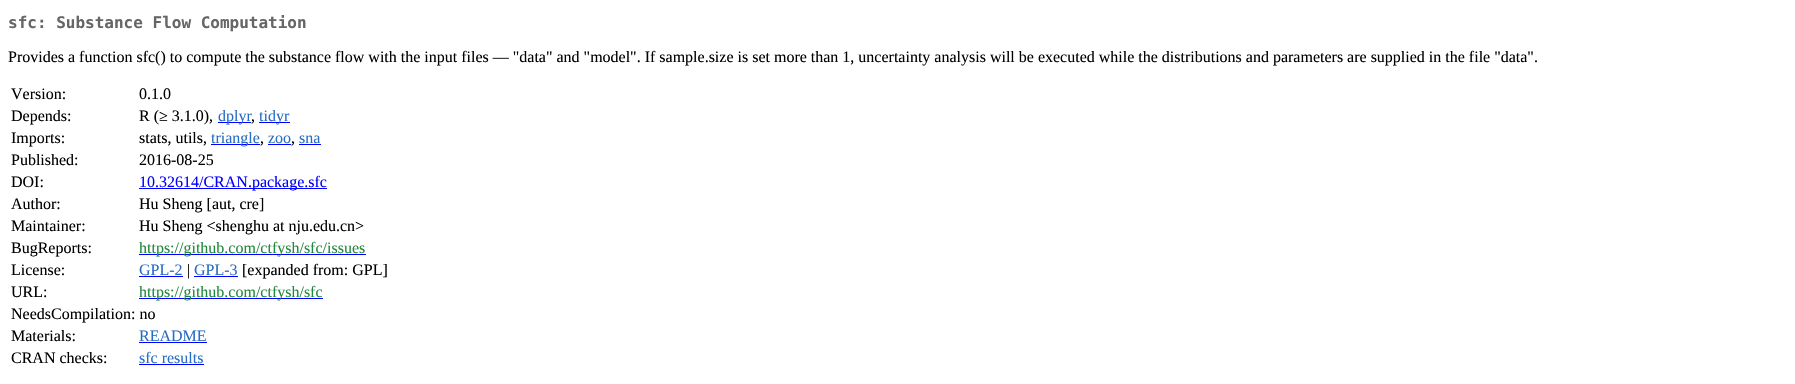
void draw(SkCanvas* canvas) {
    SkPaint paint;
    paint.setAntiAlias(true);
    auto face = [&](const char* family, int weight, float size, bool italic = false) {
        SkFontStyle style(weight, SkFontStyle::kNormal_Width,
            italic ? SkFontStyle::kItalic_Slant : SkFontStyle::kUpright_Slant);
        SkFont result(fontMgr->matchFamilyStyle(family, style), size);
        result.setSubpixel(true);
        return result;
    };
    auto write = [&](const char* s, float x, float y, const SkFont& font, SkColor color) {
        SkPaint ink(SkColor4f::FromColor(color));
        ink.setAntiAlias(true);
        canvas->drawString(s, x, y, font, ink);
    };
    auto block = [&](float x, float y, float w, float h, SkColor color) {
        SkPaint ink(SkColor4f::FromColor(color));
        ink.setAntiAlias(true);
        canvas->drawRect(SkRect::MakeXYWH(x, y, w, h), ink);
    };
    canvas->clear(SK_ColorWHITE);
    auto kFont1 = face("DejaVu Sans Mono", 700, 16);
    write("sfc: Substance Flow Computation", 8, 28, kFont1, SkColorSetRGB(102, 102, 102));
    auto kFont2 = face("Liberation Serif", 400, 16);
    write("Provides a function sfc() to compute the substance flow with the input files — \"data\" and \"model\". If sample.size is set more than 1, uncertainty analysis will be executed while the distributions and parameters are supplied in the file \"data\".", 8, 62, kFont2, SK_ColorBLACK);
    write("Version:", 11, 99, kFont2, SK_ColorBLACK);
    write("0.1.0", 139, 99, kFont2, SK_ColorBLACK);
    write("Depends:", 11, 121, kFont2, SK_ColorBLACK);
    write("R (≥ 3.1.0),", 139, 121, kFont2, SK_ColorBLACK);
    block(218, 122, 33, 1, SkColorSetRGB(0, 0, 255));
    write("dplyr", 218, 121, kFont2, SkColorSetRGB(39, 109, 195));
    write(",", 251, 121, kFont2, SK_ColorBLACK);
    block(259, 122, 31, 1, SkColorSetRGB(0, 0, 255));
    write("tidyr", 259, 121, kFont2, SkColorSetRGB(39, 109, 195));
    write("Imports:", 11, 143, kFont2, SK_ColorBLACK);
    write("stats, utils,", 139, 143, kFont2, SK_ColorBLACK);
    block(211, 144, 49, 1, SkColorSetRGB(0, 0, 255));
    write("triangle", 211, 143, kFont2, SkColorSetRGB(39, 109, 195));
    write(",", 260, 143, kFont2, SK_ColorBLACK);
    write("zoo", 268, 143, kFont2, SkColorSetRGB(39, 109, 195));
    block(268, 144, 23, 1, SkColorSetRGB(0, 0, 255));
    write(",", 291, 143, kFont2, SK_ColorBLACK);
    write("sna", 299, 143, kFont2, SkColorSetRGB(39, 109, 195));
    block(299, 144, 22, 1, SkColorSetRGB(0, 0, 255));
    write("Published:", 11, 165, kFont2, SK_ColorBLACK);
    write("2016-08-25", 139, 165, kFont2, SK_ColorBLACK);
    write("DOI:", 11, 187, kFont2, SK_ColorBLACK);
    block(139, 188, 188, 1, SkColorSetRGB(0, 0, 255));
    write("10.32614/CRAN.package.sfc", 139, 187, kFont2, SkColorSetRGB(0, 0, 255));
    write("Author:", 11, 209, kFont2, SK_ColorBLACK);
    write("Hu Sheng [aut, cre]", 139, 209, kFont2, SK_ColorBLACK);
    write("Maintainer:", 11, 231, kFont2, SK_ColorBLACK);
    write("Hu Sheng <shenghu at nju.edu.cn>", 139, 231, kFont2, SK_ColorBLACK);
    write("BugReports:", 11, 253, kFont2, SK_ColorBLACK);
    block(139, 254, 227, 1, SkColorSetRGB(0, 0, 255));
    write("https://github.com/ctfysh/sfc/issues", 139, 253, kFont2, SkColorSetRGB(31, 136, 61));
    write("License:", 11, 275, kFont2, SK_ColorBLACK);
    write("GPL-2", 139, 275, kFont2, SkColorSetRGB(39, 109, 195));
    block(139, 276, 44, 1, SkColorSetRGB(0, 0, 255));
    write("|", 187, 275, kFont2, SK_ColorBLACK);
    write("GPL-3", 194, 275, kFont2, SkColorSetRGB(39, 109, 195));
    block(194, 276, 44, 1, SkColorSetRGB(0, 0, 255));
    write("[expanded from: GPL]", 242, 275, kFont2, SK_ColorBLACK);
    write("URL:", 11, 297, kFont2, SK_ColorBLACK);
    block(139, 298, 184, 1, SkColorSetRGB(0, 0, 255));
    write("https://github.com/ctfysh/sfc", 139, 297, kFont2, SkColorSetRGB(31, 136, 61));
    write("NeedsCompilation: no", 11, 319, kFont2, SK_ColorBLACK);
    write("Materials:", 11, 341, kFont2, SK_ColorBLACK);
    write("README", 139, 341, kFont2, SkColorSetRGB(39, 109, 195));
    block(139, 342, 68, 1, SkColorSetRGB(0, 0, 255));
    write("CRAN checks:", 11, 363, kFont2, SK_ColorBLACK);
    write("sfc results", 139, 363, kFont2, SkColorSetRGB(39, 109, 195));
    block(139, 364, 65, 1, SkColorSetRGB(0, 0, 255));
}
